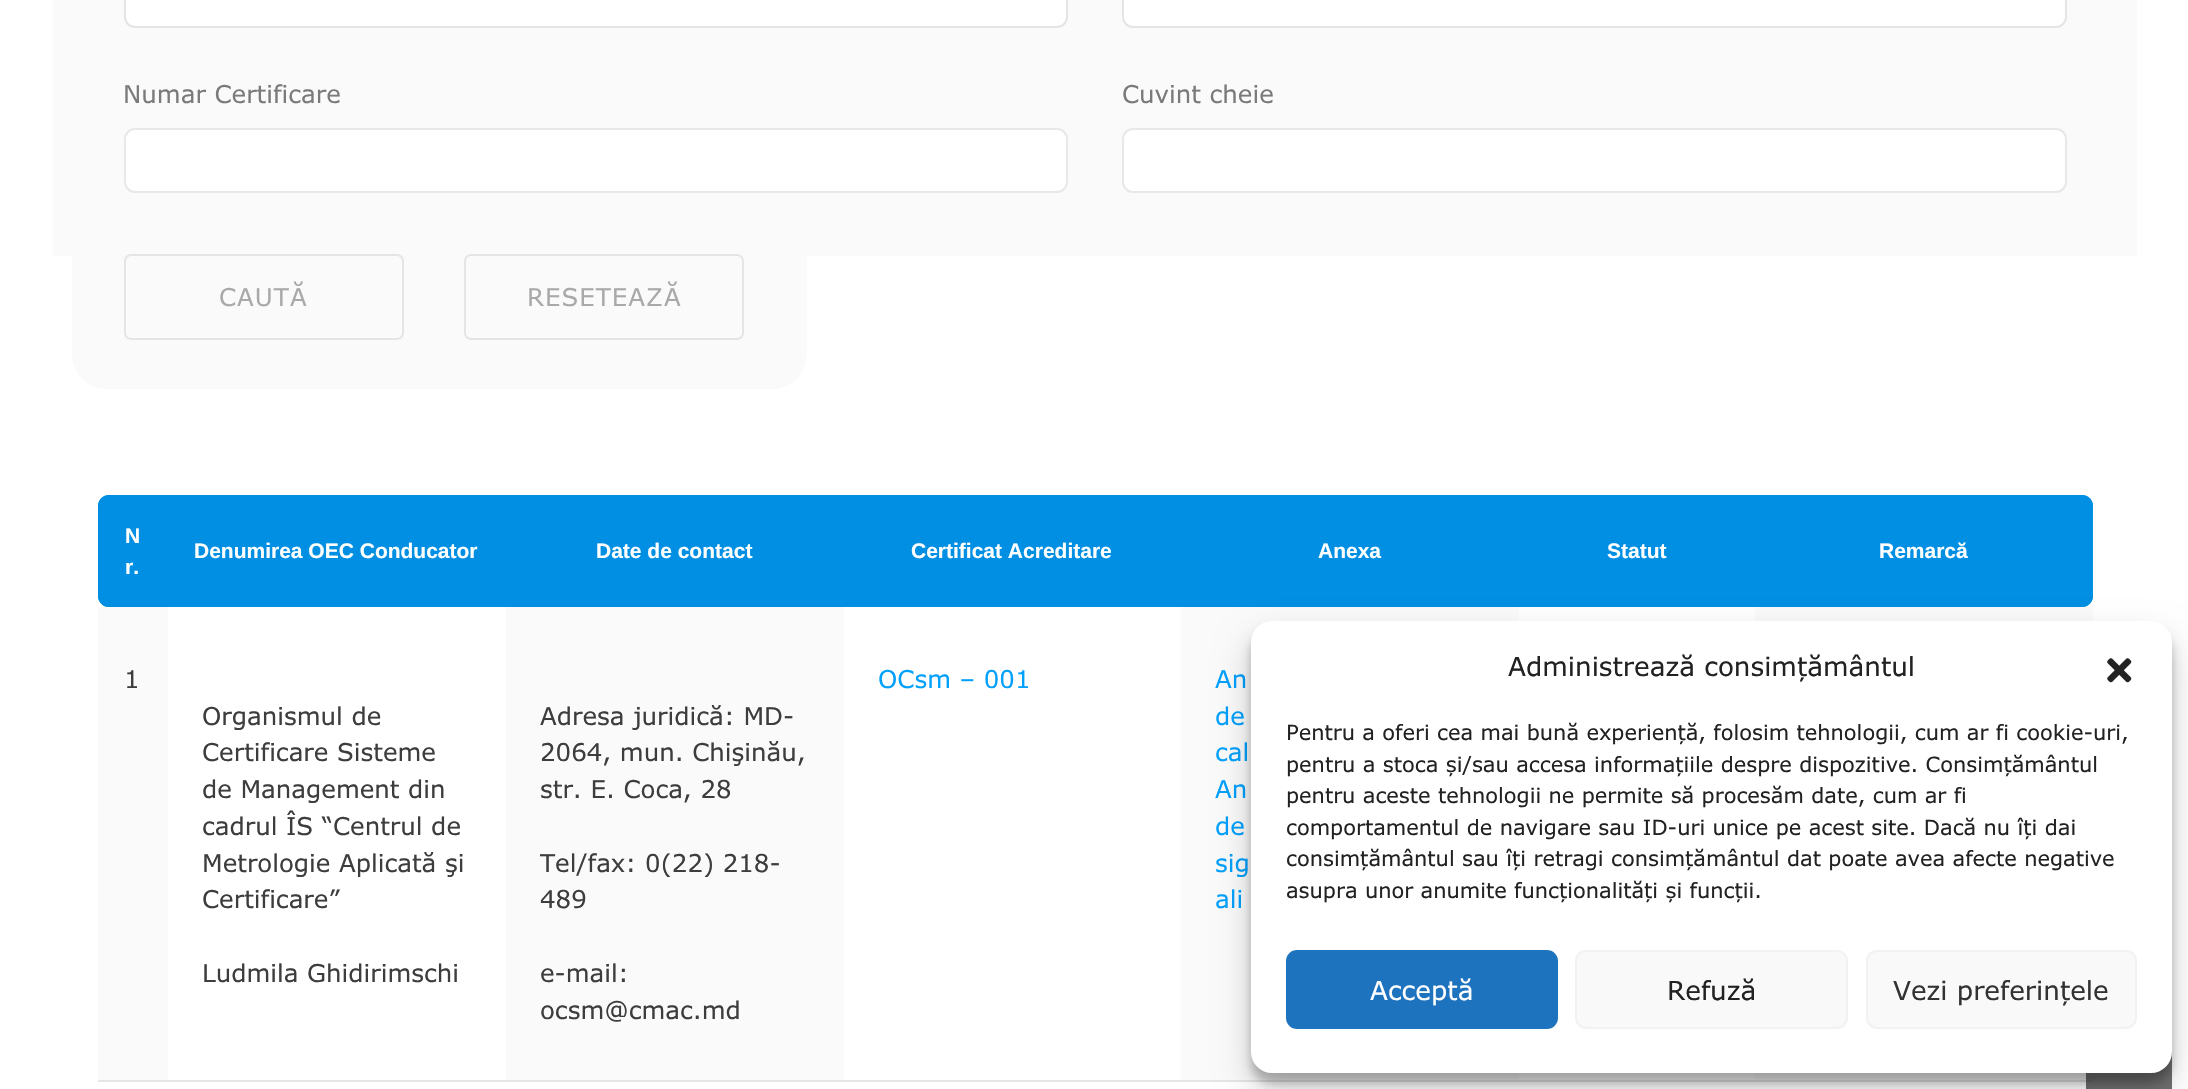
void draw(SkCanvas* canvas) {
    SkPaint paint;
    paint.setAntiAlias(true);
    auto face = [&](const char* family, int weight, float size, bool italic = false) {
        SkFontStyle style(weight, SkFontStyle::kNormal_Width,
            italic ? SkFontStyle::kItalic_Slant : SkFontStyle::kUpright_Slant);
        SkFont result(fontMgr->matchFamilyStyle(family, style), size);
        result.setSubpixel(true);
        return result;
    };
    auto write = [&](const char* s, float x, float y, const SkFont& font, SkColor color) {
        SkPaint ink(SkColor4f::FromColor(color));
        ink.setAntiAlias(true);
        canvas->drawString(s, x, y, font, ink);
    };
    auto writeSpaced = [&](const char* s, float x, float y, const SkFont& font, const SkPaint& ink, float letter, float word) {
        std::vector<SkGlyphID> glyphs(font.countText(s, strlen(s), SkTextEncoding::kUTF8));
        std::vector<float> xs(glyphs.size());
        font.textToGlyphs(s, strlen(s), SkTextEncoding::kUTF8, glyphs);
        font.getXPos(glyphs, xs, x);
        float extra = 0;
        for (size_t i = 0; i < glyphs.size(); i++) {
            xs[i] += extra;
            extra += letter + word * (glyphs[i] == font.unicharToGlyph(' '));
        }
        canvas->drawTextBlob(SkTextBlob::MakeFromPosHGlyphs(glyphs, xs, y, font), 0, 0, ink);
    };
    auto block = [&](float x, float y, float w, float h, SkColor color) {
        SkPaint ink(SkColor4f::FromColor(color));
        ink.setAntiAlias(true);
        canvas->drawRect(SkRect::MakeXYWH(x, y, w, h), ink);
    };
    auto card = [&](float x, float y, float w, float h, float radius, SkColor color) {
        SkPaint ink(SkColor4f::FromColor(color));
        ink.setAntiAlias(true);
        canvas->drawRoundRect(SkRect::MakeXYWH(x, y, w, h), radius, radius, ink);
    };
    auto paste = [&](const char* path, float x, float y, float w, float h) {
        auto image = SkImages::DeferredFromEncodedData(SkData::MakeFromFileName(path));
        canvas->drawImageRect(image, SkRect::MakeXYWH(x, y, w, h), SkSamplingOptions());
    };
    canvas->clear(SK_ColorWHITE);
    block(2086, 1052, 86, 37, SkColorSetRGB(112, 112, 112));
    block(53, 0, 2084, 256, SkColorSetRGB(250, 250, 250));
    paint.setColor(SK_ColorWHITE);
    canvas->drawRoundRect(SkRect::MakeXYWH(125, -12, 942, 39), 10, 10, paint);
    paint.setStyle(SkPaint::kStroke_Style);
    paint.setStrokeWidth(2);
    paint.setColor(SkColorSetRGB(229, 229, 229));
    canvas->drawRoundRect(SkRect::MakeXYWH(125, -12, 942, 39), 10, 10, paint);
    paint.setStyle(SkPaint::kFill_Style);
    paint.setColor(SK_ColorWHITE);
    canvas->drawRoundRect(SkRect::MakeXYWH(1123, -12, 943, 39), 10, 10, paint);
    paint.setStyle(SkPaint::kStroke_Style);
    paint.setColor(SkColorSetRGB(229, 229, 229));
    canvas->drawRoundRect(SkRect::MakeXYWH(1123, -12, 943, 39), 10, 10, paint);
    auto kFont1 = face("Verdana", 400, 24.5f);
    write("Numar Certificare", 123, 103, kFont1, SkColorSetRGB(122, 122, 122));
    paint.setStyle(SkPaint::kFill_Style);
    paint.setColor(SK_ColorWHITE);
    canvas->drawRoundRect(SkRect::MakeXYWH(125, 129, 942, 63), 10, 10, paint);
    paint.setStyle(SkPaint::kStroke_Style);
    paint.setColor(SkColorSetRGB(232, 232, 232));
    canvas->drawRoundRect(SkRect::MakeXYWH(125, 129, 942, 63), 10, 10, paint);
    write("Cuvint cheie", 1122, 103, kFont1, SkColorSetRGB(122, 122, 122));
    paint.setStyle(SkPaint::kFill_Style);
    paint.setColor(SK_ColorWHITE);
    canvas->drawRoundRect(SkRect::MakeXYWH(1123, 129, 943, 63), 10, 10, paint);
    paint.setStyle(SkPaint::kStroke_Style);
    paint.setColor(SkColorSetRGB(232, 232, 232));
    canvas->drawRoundRect(SkRect::MakeXYWH(1123, 129, 943, 63), 10, 10, paint);
    paint.setStyle(SkPaint::kFill_Style);
    paint.setColor(SkColorSetRGB(250, 250, 250));
    canvas->drawPath(SkPathBuilder().moveTo(72, 254).lineTo(807, 254).lineTo(807, 354).cubicTo(807, 373.5f, 791.5f, 389, 772, 389).lineTo(107, 389).cubicTo(87.5f, 389, 72, 373.5f, 72, 354).close().detach(), paint);
    paint.setStyle(SkPaint::kStroke_Style);
    paint.setColor(SkColorSetRGB(229, 229, 229));
    canvas->drawRoundRect(SkRect::MakeXYWH(125, 255, 278, 84), 6, 6, paint);
    paint.setStyle(SkPaint::kFill_Style);
    paint.setColor(SkColorSetRGB(169, 169, 169));
    writeSpaced("CAUTĂ", 219, 306, kFont1, paint, 1, 0);
    paint.setStyle(SkPaint::kStroke_Style);
    paint.setColor(SkColorSetRGB(229, 229, 229));
    canvas->drawRoundRect(SkRect::MakeXYWH(465, 255, 278, 84), 6, 6, paint);
    paint.setStyle(SkPaint::kFill_Style);
    paint.setColor(SkColorSetRGB(169, 169, 169));
    writeSpaced("RESETEAZĂ", 527, 306, kFont1, paint, 1, 0);
    card(98, 495, 1995, 112, 11, SkColorSetRGB(0, 143, 226));
    paint.setColor(SkColorSetRGB(0, 143, 226));
    canvas->drawPath(SkPathBuilder().moveTo(109, 495).lineTo(168, 495).lineTo(168, 607).lineTo(109, 607).cubicTo(103, 607, 98, 602, 98, 596).lineTo(98, 506).cubicTo(98, 500, 103, 495, 109, 495).close().detach(), paint);
    auto kFont2 = face("Liberation Sans", 700, 21);
    write("N", 125, 543, kFont2, SK_ColorWHITE);
    write("r.", 125, 574, kFont2, SK_ColorWHITE);
    write("Denumirea OEC Conducator", 194, 558, kFont2, SK_ColorWHITE);
    write("Date de contact", 596, 558, kFont2, SK_ColorWHITE);
    write("Certificat Acreditare", 911, 558, kFont2, SK_ColorWHITE);
    write("Anexa", 1318, 558, kFont2, SK_ColorWHITE);
    write("Statut", 1607, 558, kFont2, SK_ColorWHITE);
    canvas->drawPath(SkPathBuilder().moveTo(1755, 495).lineTo(2082, 495).cubicTo(2088, 495, 2093, 500, 2093, 506).lineTo(2093, 596).cubicTo(2093, 602, 2088, 607, 2082, 607).lineTo(1755, 607).close().detach(), paint);
    write("Remarcă", 1879, 558, kFont2, SK_ColorWHITE);
    block(98, 1080, 1995, 2, SkColorSetRGB(229, 229, 229));
    block(2086, 1080, 7, 2, SkColorSetRGB(105, 105, 105));
    block(98, 607, 70, 473, SkColorSetRGB(250, 250, 250));
    write("1", 124, 688, kFont1, SkColorSetRGB(61, 61, 61));
    write("Organismul de", 202, 725, kFont1, SkColorSetRGB(61, 61, 61));
    write("Certificare Sisteme", 202, 761, kFont1, SkColorSetRGB(61, 61, 61));
    write("de Management din", 202, 798, kFont1, SkColorSetRGB(61, 61, 61));
    write("cadrul ÎS “Centrul de", 202, 835, kFont1, SkColorSetRGB(61, 61, 61));
    write("Metrologie Aplicată şi", 202, 872, kFont1, SkColorSetRGB(61, 61, 61));
    write("Certificare”", 202, 908, kFont1, SkColorSetRGB(61, 61, 61));
    write("Ludmila Ghidirimschi", 202, 982, kFont1, SkColorSetRGB(61, 61, 61));
    block(506, 607, 338, 473, SkColorSetRGB(250, 250, 250));
    write("Adresa juridică: MD-", 540, 725, kFont1, SkColorSetRGB(61, 61, 61));
    write("2064, mun. Chişinău,", 540, 761, kFont1, SkColorSetRGB(61, 61, 61));
    write("str. E. Coca, 28", 540, 798, kFont1, SkColorSetRGB(61, 61, 61));
    write("Tel/fax: 0(22) 218-", 540, 872, kFont1, SkColorSetRGB(61, 61, 61));
    write("489", 540, 908, kFont1, SkColorSetRGB(61, 61, 61));
    write("e-mail:", 540, 982, kFont1, SkColorSetRGB(61, 61, 61));
    write("ocsm@cmac.md", 540, 1019, kFont1, SkColorSetRGB(61, 61, 61));
    write("OCsm – 001", 878, 688, kFont1, SkColorSetRGB(0, 160, 252));
    block(1181, 607, 338, 473, SkColorSetRGB(250, 250, 250));
    write("An", 1215, 688, kFont1, SkColorSetRGB(0, 160, 252));
    write("de", 1215, 725, kFont1, SkColorSetRGB(0, 160, 252));
    write("cal", 1215, 761, kFont1, SkColorSetRGB(0, 160, 252));
    write("An", 1215, 798, kFont1, SkColorSetRGB(0, 160, 252));
    write("de", 1215, 835, kFont1, SkColorSetRGB(0, 160, 252));
    write("sig", 1215, 872, kFont1, SkColorSetRGB(0, 160, 252));
    write("ali", 1215, 908, kFont1, SkColorSetRGB(0, 160, 252));
    block(1755, 607, 338, 473, SkColorSetRGB(250, 250, 250));
    block(2086, 1073, 7, 7, SkColorSetRGB(111, 111, 111));
    paint.setColor(SkColorSetARGB(59, 0, 0, 0));
    paint.setMaskFilter(SkMaskFilter::MakeBlur(kNormal_SkBlurStyle, 5));
    canvas->drawRoundRect(SkRect::MakeXYWH(1251, 632, 921, 451), 21, 21, paint);
    paint.setMaskFilter(nullptr);
    paint.setColor(SkColorSetARGB(48, 0, 0, 0));
    paint.setMaskFilter(SkMaskFilter::MakeBlur(kNormal_SkBlurStyle, 17.5f));
    canvas->drawRoundRect(SkRect::MakeXYWH(1251, 639, 921, 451), 21, 21, paint);
    paint.setMaskFilter(nullptr);
    card(1251, 621, 921, 452, 21, SK_ColorWHITE);
    auto kFont3 = face("Verdana", 400, 26.25f);
    write("Administrează consimțământul", 1508, 676, kFont3, SkColorSetRGB(34, 34, 34));
    paste("pic1.png", 2107, 658, 25, 25);
    auto kFont4 = face("Verdana", 400, 21);
    write("Pentru a oferi cea mai bună experiență, folosim tehnologii, cum ar fi cookie-uri,", 1286, 740, kFont4, SkColorSetRGB(34, 34, 34));
    write("pentru a stoca și/sau accesa informațiile despre dispozitive. Consimțământul", 1286, 772, kFont4, SkColorSetRGB(34, 34, 34));
    write("pentru aceste tehnologii ne permite să procesăm date, cum ar fi", 1286, 803, kFont4, SkColorSetRGB(34, 34, 34));
    write("comportamentul de navigare sau ID-uri unice pe acest site. Dacă nu îți dai", 1286, 835, kFont4, SkColorSetRGB(34, 34, 34));
    write("consimțământul sau îți retragi consimțământul dat poate avea afecte negative", 1286, 866, kFont4, SkColorSetRGB(34, 34, 34));
    write("asupra unor anumite funcționalități și funcții.", 1286, 898, kFont4, SkColorSetRGB(34, 34, 34));
    paint.setColor(SkColorSetRGB(30, 115, 190));
    canvas->drawRoundRect(SkRect::MakeXYWH(1287, 951, 270, 77), 10, 10, paint);
    paint.setStyle(SkPaint::kStroke_Style);
    canvas->drawRoundRect(SkRect::MakeXYWH(1287, 951, 270, 77), 10, 10, paint);
    write("Acceptă", 1370, 1000, kFont3, SK_ColorWHITE);
    paint.setStyle(SkPaint::kFill_Style);
    paint.setColor(SkColorSetRGB(249, 249, 249));
    canvas->drawRoundRect(SkRect::MakeXYWH(1576, 951, 271, 77), 10, 10, paint);
    paint.setStyle(SkPaint::kStroke_Style);
    paint.setColor(SkColorSetRGB(242, 242, 242));
    canvas->drawRoundRect(SkRect::MakeXYWH(1576, 951, 271, 77), 10, 10, paint);
    write("Refuză", 1667, 1000, kFont3, SkColorSetRGB(34, 34, 34));
    paint.setStyle(SkPaint::kFill_Style);
    paint.setColor(SkColorSetRGB(249, 249, 249));
    canvas->drawRoundRect(SkRect::MakeXYWH(1867, 951, 269, 77), 10, 10, paint);
    paint.setStyle(SkPaint::kStroke_Style);
    paint.setColor(SkColorSetRGB(242, 242, 242));
    canvas->drawRoundRect(SkRect::MakeXYWH(1867, 951, 269, 77), 10, 10, paint);
    write("Vezi preferințele", 1893, 1000, kFont3, SkColorSetRGB(51, 51, 51));
}
